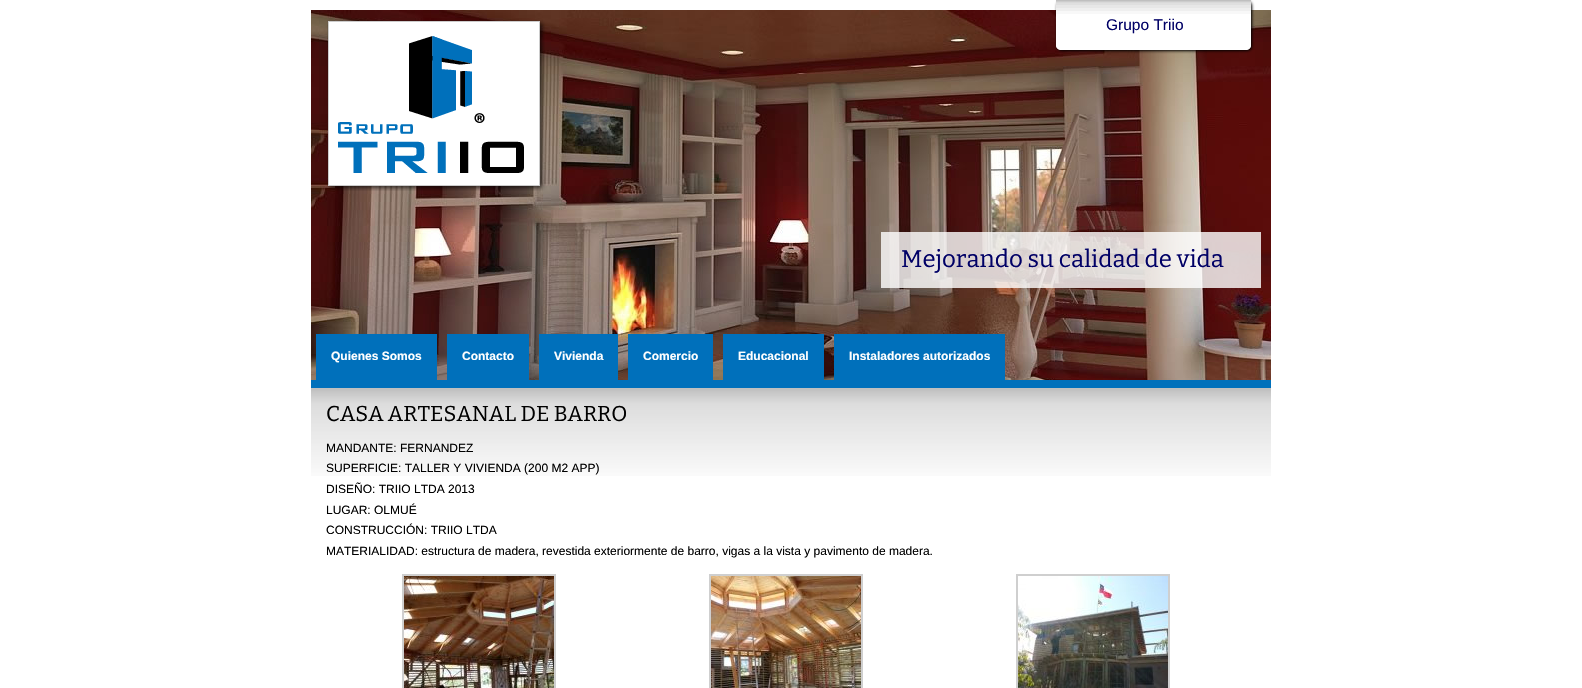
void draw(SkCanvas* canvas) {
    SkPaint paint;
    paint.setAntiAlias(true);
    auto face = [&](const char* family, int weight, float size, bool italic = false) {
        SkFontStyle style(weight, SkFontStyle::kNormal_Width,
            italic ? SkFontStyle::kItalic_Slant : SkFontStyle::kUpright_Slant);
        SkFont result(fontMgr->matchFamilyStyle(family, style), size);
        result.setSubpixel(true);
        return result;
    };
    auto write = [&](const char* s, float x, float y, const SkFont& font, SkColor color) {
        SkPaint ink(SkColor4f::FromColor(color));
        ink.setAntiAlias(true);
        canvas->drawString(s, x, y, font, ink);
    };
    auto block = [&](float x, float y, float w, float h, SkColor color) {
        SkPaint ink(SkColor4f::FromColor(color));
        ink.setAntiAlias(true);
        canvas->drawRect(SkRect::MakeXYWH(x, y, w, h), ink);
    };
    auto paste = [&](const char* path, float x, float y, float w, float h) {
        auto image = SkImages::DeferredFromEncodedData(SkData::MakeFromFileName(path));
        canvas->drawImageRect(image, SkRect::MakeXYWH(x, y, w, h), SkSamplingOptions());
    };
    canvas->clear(SK_ColorWHITE);
    paste("pic2.png", 311, 10, 960, 370);
    paint.setColor(SK_ColorBLACK);
    paint.setMaskFilter(SkMaskFilter::MakeBlur(kNormal_SkBlurStyle, 1.5f));
    canvas->drawRoundRect(SkRect::MakeXYWH(1057, 1, 195, 50), 5, 5, paint);
    paint.setMaskFilter(nullptr);
    paint.setColor(SK_ColorWHITE);
    canvas->drawPath(SkPathBuilder().moveTo(1056, 0).lineTo(1251, 0).lineTo(1251, 45).cubicTo(1251, 48, 1249, 50, 1246, 50).lineTo(1061, 50).cubicTo(1058, 50, 1056, 48, 1056, 45).close().detach(), paint);
    paste("pic1.png", 1056, 0, 195, 48);
    auto kFont1 = face("Liberation Sans", 400, 15.5f);
    write("Grupo Triio", 1106, 30, kFont1, SkColorSetRGB(0, 0, 102));
    paste("pic3.png", 327, 20, 218, 171);
    block(881, 232, 380, 56, SkColorSetARGB(204, 255, 255, 255));
    auto kFont2 = face("Bitter", 400, 24);
    write("Mejorando su calidad de vida", 901, 267, kFont2, SkColorSetRGB(0, 0, 102));
    block(316, 334, 121, 46, SkColorSetRGB(0, 112, 187));
    auto kFont3 = face("Liberation Sans", 700, 12);
    write("Quienes Somos", 331, 360, kFont3, SK_ColorWHITE);
    block(447, 334, 82, 46, SkColorSetRGB(0, 112, 187));
    write("Contacto", 462, 360, kFont3, SK_ColorWHITE);
    block(539, 334, 79, 46, SkColorSetRGB(0, 112, 187));
    write("Vivienda", 554, 360, kFont3, SK_ColorWHITE);
    block(628, 334, 85, 46, SkColorSetRGB(0, 112, 187));
    write("Comercio", 643, 360, kFont3, SK_ColorWHITE);
    block(723, 334, 101, 46, SkColorSetRGB(0, 112, 187));
    write("Educacional", 738, 360, kFont3, SK_ColorWHITE);
    block(834, 334, 171, 46, SkColorSetRGB(0, 112, 187));
    write("Instaladores autorizados", 849, 360, kFont3, SK_ColorWHITE);
    block(311, 380, 960, 8, SkColorSetRGB(0, 112, 187));
    paste("pic4.png", 311, 388, 960, 88);
    auto kFont4 = face("Bitter", 400, 21.6f);
    write("CASA ARTESANAL DE BARRO", 326, 421, kFont4, SK_ColorBLACK);
    auto kFont5 = face("Liberation Sans", 400, 12);
    write("MANDANTE: FERNANDEZ", 326, 452, kFont5, SK_ColorBLACK);
    write("SUPERFICIE: TALLER Y VIVIENDA (200 M2 APP)", 326, 472, kFont5, SK_ColorBLACK);
    write("DISEÑO: TRIIO LTDA 2013", 326, 493, kFont5, SK_ColorBLACK);
    write("LUGAR: OLMUÉ", 326, 514, kFont5, SK_ColorBLACK);
    write("CONSTRUCCIÓN: TRIIO LTDA", 326, 534, kFont5, SK_ColorBLACK);
    write("MATERIALIDAD: estructura de madera, revestida exteriormente de barro, vigas a la vista y pavimento de madera.", 326, 555, kFont5, SK_ColorBLACK);
    paint.setStyle(SkPaint::kStroke_Style);
    paint.setStrokeWidth(2);
    paint.setColor(SkColorSetRGB(207, 207, 207));
    canvas->drawRect(SkRect::MakeXYWH(403, 575, 152, 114), paint);
    paste("pic5.png", 404, 576, 150, 112);
    canvas->drawRect(SkRect::MakeXYWH(710, 575, 152, 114), paint);
    paste("pic6.png", 711, 576, 150, 112);
    canvas->drawRect(SkRect::MakeXYWH(1017, 575, 152, 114), paint);
    paste("pic7.png", 1018, 576, 150, 112);
}
